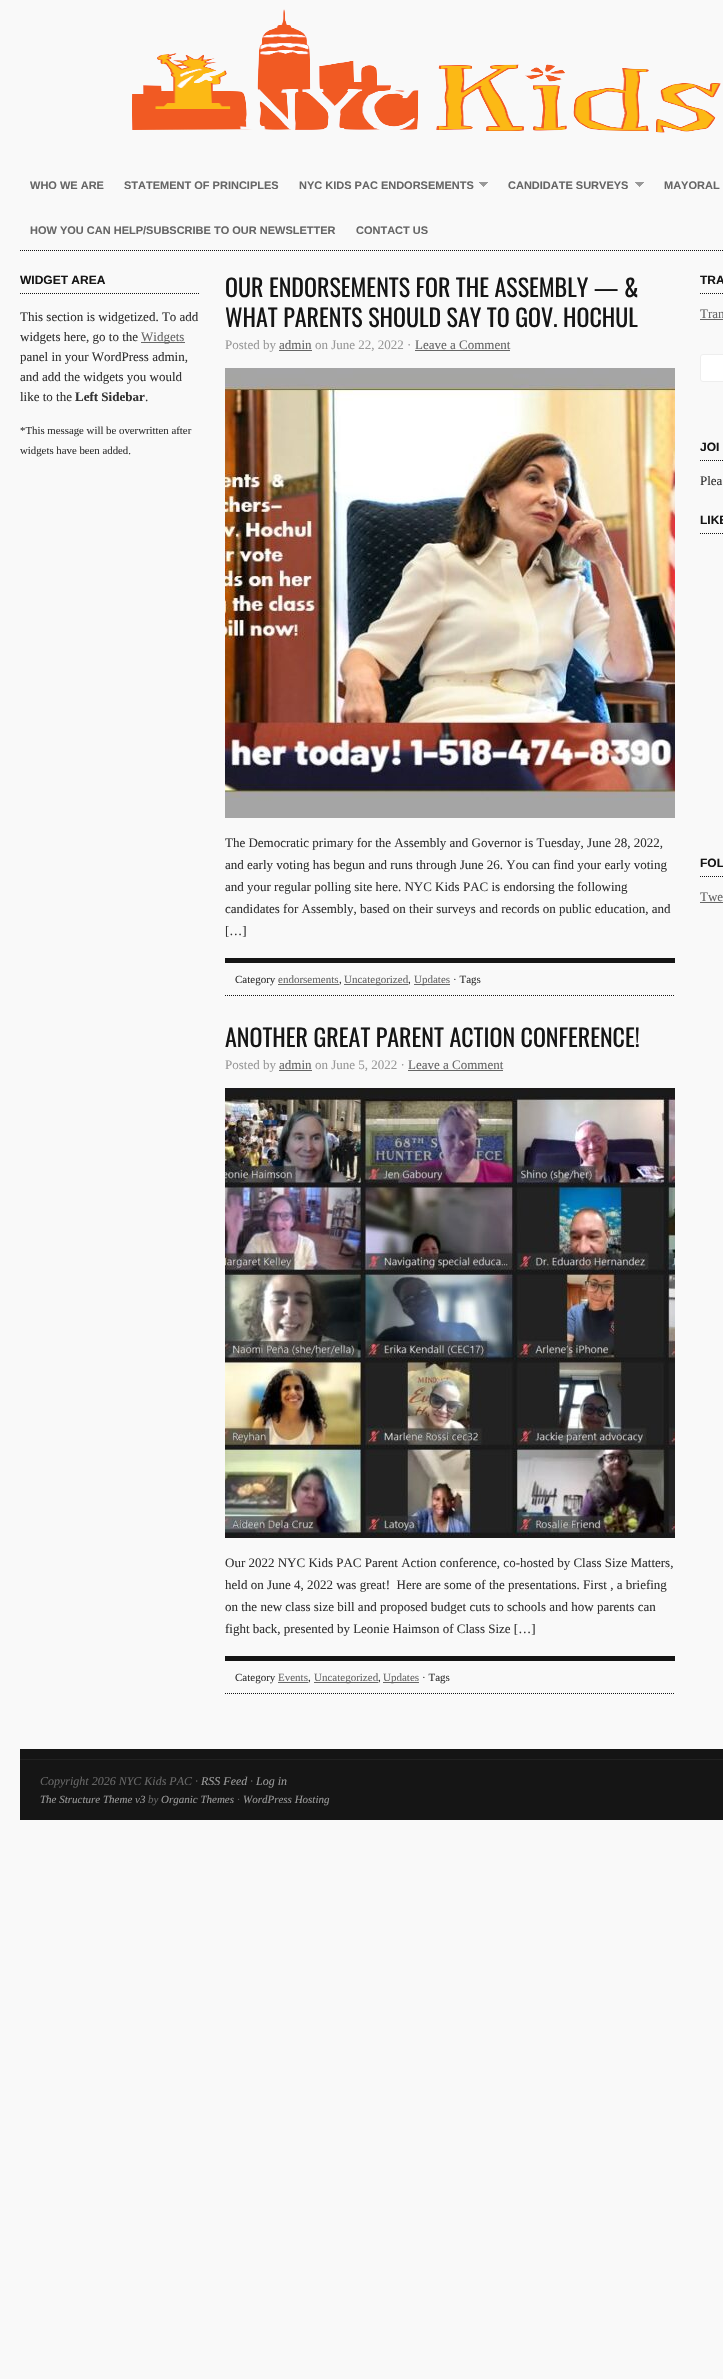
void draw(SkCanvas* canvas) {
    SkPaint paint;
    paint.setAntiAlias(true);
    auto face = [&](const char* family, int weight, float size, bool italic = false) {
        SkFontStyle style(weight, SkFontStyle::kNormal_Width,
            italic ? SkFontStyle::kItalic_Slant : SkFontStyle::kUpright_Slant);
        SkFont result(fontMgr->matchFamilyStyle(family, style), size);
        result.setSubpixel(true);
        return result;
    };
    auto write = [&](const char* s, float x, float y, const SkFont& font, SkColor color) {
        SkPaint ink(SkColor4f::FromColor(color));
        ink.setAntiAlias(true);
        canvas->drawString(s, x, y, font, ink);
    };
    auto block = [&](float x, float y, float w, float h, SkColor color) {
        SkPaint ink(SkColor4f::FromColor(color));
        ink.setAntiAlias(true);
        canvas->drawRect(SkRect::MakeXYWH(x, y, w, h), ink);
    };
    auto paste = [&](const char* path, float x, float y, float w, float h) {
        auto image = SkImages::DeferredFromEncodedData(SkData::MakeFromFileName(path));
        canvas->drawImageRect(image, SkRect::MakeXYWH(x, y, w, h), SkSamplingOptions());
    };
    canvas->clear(SkColorSetRGB(249, 249, 249));
    paste("pic1.png", 132, 9, 589, 124);
    auto kFont1 = face("Liberation Sans", 700, 11);
    write("WHO WE ARE", 30, 189, kFont1, SkColorSetRGB(102, 102, 102));
    write("STATEMENT OF PRINCIPLES", 124, 189, kFont1, SkColorSetRGB(102, 102, 102));
    write("NYC KIDS PAC ENDORSEMENTS", 299, 189, kFont1, SkColorSetRGB(102, 102, 102));
    paste("pic2.png", 479, 182, 9, 5);
    write("CANDIDATE SURVEYS", 508, 189, kFont1, SkColorSetRGB(102, 102, 102));
    paste("pic2.png", 635, 182, 9, 5);
    write("MAYORAL", 664, 189, kFont1, SkColorSetRGB(102, 102, 102));
    write("HOW YOU CAN HELP/SUBSCRIBE TO OUR NEWSLETTER", 30, 234, kFont1, SkColorSetRGB(102, 102, 102));
    write("CONTACT US", 356, 234, kFont1, SkColorSetRGB(102, 102, 102));
    paint.setStyle(SkPaint::kStroke_Style);
    paint.setStrokeWidth(1);
    paint.setColor(SkColorSetRGB(21, 21, 21));
    paint.setPathEffect(SkDashPathEffect::Make({{1, 1}}, 0));
    canvas->drawPath(SkPathBuilder().moveTo(20, 250.5f).lineTo(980, 250.5f).detach(), paint);
    paint.setPathEffect(nullptr);
    paint.setPathEffect(SkDashPathEffect::Make({{1, 1}}, 0));
    canvas->drawPath(SkPathBuilder().moveTo(20, 293.5f).lineTo(200, 293.5f).detach(), paint);
    paint.setPathEffect(nullptr);
    auto kFont2 = face("Liberation Sans", 700, 12);
    write("WIDGET AREA", 20, 284, kFont2, SkColorSetRGB(21, 21, 21));
    auto kFont3 = face("Liberation Serif", 400, 13);
    write("This section is widgetized. To add", 20, 321, kFont3, SkColorSetRGB(51, 51, 51));
    write("widgets here, go to the", 20, 341, kFont3, SkColorSetRGB(51, 51, 51));
    block(141, 342, 44, 1, SkColorSetRGB(102, 102, 102));
    write("Widgets", 141, 341, kFont3, SkColorSetRGB(102, 102, 102));
    write("panel in your WordPress admin,", 20, 361, kFont3, SkColorSetRGB(51, 51, 51));
    write("and add the widgets you would", 20, 381, kFont3, SkColorSetRGB(51, 51, 51));
    write("like to the", 20, 401, kFont3, SkColorSetRGB(51, 51, 51));
    auto kFont4 = face("Liberation Serif", 700, 13);
    write("Left Sidebar", 75, 401, kFont4, SkColorSetRGB(51, 51, 51));
    write(".", 145, 401, kFont3, SkColorSetRGB(51, 51, 51));
    auto kFont5 = face("Liberation Serif", 400, 10.8f);
    write("*This message will be overwritten after", 20, 434, kFont5, SkColorSetRGB(51, 51, 51));
    write("widgets have been added.", 20, 454, kFont5, SkColorSetRGB(51, 51, 51));
    auto kFont6 = face("Oswald", 400, 24);
    write("OUR ENDORSEMENTS FOR THE ASSEMBLY — &", 225, 297, kFont6, SkColorSetRGB(21, 21, 21));
    write("WHAT PARENTS SHOULD SAY TO GOV. HOCHUL", 225, 327, kFont6, SkColorSetRGB(21, 21, 21));
    write("Posted by", 225, 349, kFont3, SkColorSetRGB(153, 153, 153));
    write("admin", 279, 349, kFont3, SkColorSetRGB(102, 102, 102));
    block(279, 350, 33, 1, SkColorSetRGB(102, 102, 102));
    write("on June 22, 2022 ·", 315, 349, kFont3, SkColorSetRGB(153, 153, 153));
    write("Leave a Comment", 415, 349, kFont3, SkColorSetRGB(102, 102, 102));
    block(415, 350, 95, 1, SkColorSetRGB(102, 102, 102));
    paste("pic3.png", 225, 368, 450, 450);
    write("The Democratic primary for the Assembly and Governor is Tuesday, June 28, 2022,", 225, 847, kFont3, SkColorSetRGB(51, 51, 51));
    write("and early voting has begun and runs through June 26. You can find your early voting", 225, 869, kFont3, SkColorSetRGB(51, 51, 51));
    write("and your regular polling site here. NYC Kids PAC is endorsing the following", 225, 891, kFont3, SkColorSetRGB(51, 51, 51));
    write("candidates for Assembly, based on their surveys and records on public education, and", 225, 913, kFont3, SkColorSetRGB(51, 51, 51));
    write("[…]", 225, 935, kFont3, SkColorSetRGB(51, 51, 51));
    block(225, 958, 450, 5, SkColorSetRGB(21, 21, 21));
    paint.setPathEffect(SkDashPathEffect::Make({{1, 1}}, 0));
    canvas->drawPath(SkPathBuilder().moveTo(225, 995.5f).lineTo(675, 995.5f).detach(), paint);
    paint.setPathEffect(nullptr);
    auto kFont7 = face("Liberation Serif", 400, 11);
    write("Category", 235, 983, kFont7, SkColorSetRGB(51, 51, 51));
    write("endorsements", 278, 983, kFont7, SkColorSetRGB(102, 102, 102));
    block(278, 984, 61, 1, SkColorSetRGB(102, 102, 102));
    write(",", 339, 983, kFont7, SkColorSetRGB(51, 51, 51));
    block(344, 984, 64, 1, SkColorSetRGB(102, 102, 102));
    write("Uncategorized", 344, 983, kFont7, SkColorSetRGB(102, 102, 102));
    write(",", 408, 983, kFont7, SkColorSetRGB(51, 51, 51));
    block(414, 984, 36, 1, SkColorSetRGB(102, 102, 102));
    write("Updates", 414, 983, kFont7, SkColorSetRGB(102, 102, 102));
    write("· Tags", 453, 983, kFont7, SkColorSetRGB(51, 51, 51));
    write("ANOTHER GREAT PARENT ACTION CONFERENCE!", 225, 1047, kFont6, SkColorSetRGB(21, 21, 21));
    write("Posted by", 225, 1069, kFont3, SkColorSetRGB(153, 153, 153));
    write("admin", 279, 1069, kFont3, SkColorSetRGB(102, 102, 102));
    block(279, 1070, 33, 1, SkColorSetRGB(102, 102, 102));
    write("on June 5, 2022 ·", 315, 1069, kFont3, SkColorSetRGB(153, 153, 153));
    write("Leave a Comment", 408, 1069, kFont3, SkColorSetRGB(102, 102, 102));
    block(408, 1070, 95, 1, SkColorSetRGB(102, 102, 102));
    paste("pic4.png", 225, 1088, 450, 450);
    write("Our 2022 NYC Kids PAC Parent Action conference, co-hosted by Class Size Matters,", 225, 1567, kFont3, SkColorSetRGB(51, 51, 51));
    write("held on June 4, 2022 was great!  Here are some of the presentations. First , a briefing", 225, 1589, kFont3, SkColorSetRGB(51, 51, 51));
    write("on the new class size bill and proposed budget cuts to schools and how parents can", 225, 1611, kFont3, SkColorSetRGB(51, 51, 51));
    write("fight back, presented by Leonie Haimson of Class Size […]", 225, 1633, kFont3, SkColorSetRGB(51, 51, 51));
    block(225, 1656, 450, 5, SkColorSetRGB(21, 21, 21));
    paint.setPathEffect(SkDashPathEffect::Make({{1, 1}}, 0));
    canvas->drawPath(SkPathBuilder().moveTo(225, 1693.5f).lineTo(675, 1693.5f).detach(), paint);
    paint.setPathEffect(nullptr);
    write("Category", 235, 1681, kFont7, SkColorSetRGB(51, 51, 51));
    write("Events", 278, 1681, kFont7, SkColorSetRGB(102, 102, 102));
    block(278, 1682, 30, 1, SkColorSetRGB(102, 102, 102));
    write(",", 308, 1681, kFont7, SkColorSetRGB(51, 51, 51));
    block(314, 1682, 64, 1, SkColorSetRGB(102, 102, 102));
    write("Uncategorized", 314, 1681, kFont7, SkColorSetRGB(102, 102, 102));
    write(",", 378, 1681, kFont7, SkColorSetRGB(51, 51, 51));
    block(383, 1682, 36, 1, SkColorSetRGB(102, 102, 102));
    write("Updates", 383, 1681, kFont7, SkColorSetRGB(102, 102, 102));
    write("· Tags", 422, 1681, kFont7, SkColorSetRGB(51, 51, 51));
    paint.setPathEffect(SkDashPathEffect::Make({{1, 1}}, 0));
    canvas->drawPath(SkPathBuilder().moveTo(700, 293.5f).lineTo(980, 293.5f).detach(), paint);
    paint.setPathEffect(nullptr);
    write("TRA", 700, 284, kFont2, SkColorSetRGB(21, 21, 21));
    write("Tran", 700, 318, kFont3, SkColorSetRGB(102, 102, 102));
    block(700, 319, 23, 1, SkColorSetRGB(102, 102, 102));
    paint.setStyle(SkPaint::kFill_Style);
    paint.setColor(SK_ColorWHITE);
    canvas->drawRoundRect(SkRect::MakeXYWH(700.5f, 354.5f, 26, 27), 2.5f, 2.5f, paint);
    paint.setStyle(SkPaint::kStroke_Style);
    paint.setColor(SkColorSetRGB(238, 238, 238));
    canvas->drawRoundRect(SkRect::MakeXYWH(700.5f, 354.5f, 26, 27), 2.5f, 2.5f, paint);
    paint.setColor(SkColorSetRGB(21, 21, 21));
    paint.setPathEffect(SkDashPathEffect::Make({{1, 1}}, 0));
    canvas->drawPath(SkPathBuilder().moveTo(700, 460.5f).lineTo(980, 460.5f).detach(), paint);
    paint.setPathEffect(nullptr);
    write("JOI", 700, 451, kFont2, SkColorSetRGB(21, 21, 21));
    write("Plea", 700, 485, kFont3, SkColorSetRGB(51, 51, 51));
    paint.setPathEffect(SkDashPathEffect::Make({{1, 1}}, 0));
    canvas->drawPath(SkPathBuilder().moveTo(700, 533.5f).lineTo(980, 533.5f).detach(), paint);
    paint.setPathEffect(nullptr);
    write("LIKE", 700, 524, kFont2, SkColorSetRGB(21, 21, 21));
    paint.setPathEffect(SkDashPathEffect::Make({{1, 1}}, 0));
    canvas->drawPath(SkPathBuilder().moveTo(700, 876.5f).lineTo(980, 876.5f).detach(), paint);
    paint.setPathEffect(nullptr);
    write("FOL", 700, 867, kFont2, SkColorSetRGB(21, 21, 21));
    write("Twe", 700, 901, kFont3, SkColorSetRGB(102, 102, 102));
    block(700, 902, 23, 1, SkColorSetRGB(102, 102, 102));
    block(20, 1749, 703, 10, SkColorSetRGB(21, 21, 21));
    block(20, 1760, 703, 60, SkColorSetRGB(21, 21, 21));
    block(20, 1759, 703, 1, SkColorSetRGB(34, 34, 34));
    auto kFont8 = face("Liberation Serif", 400, 12, true);
    write("Copyright 2026 NYC Kids PAC ·", 40, 1785, kFont8, SkColorSetRGB(102, 102, 102));
    write("RSS Feed", 201, 1785, kFont8, SkColorSetRGB(153, 153, 153));
    write("·", 250, 1785, kFont8, SkColorSetRGB(102, 102, 102));
    write("Log in", 256, 1785, kFont8, SkColorSetRGB(153, 153, 153));
    auto kFont9 = face("Liberation Serif", 400, 11, true);
    write("The Structure Theme v3", 40, 1803, kFont9, SkColorSetRGB(153, 153, 153));
    write("by", 148, 1803, kFont9, SkColorSetRGB(102, 102, 102));
    write("Organic Themes", 161, 1803, kFont9, SkColorSetRGB(153, 153, 153));
    write("·", 237, 1803, kFont9, SkColorSetRGB(102, 102, 102));
    write("WordPress Hosting", 243, 1803, kFont9, SkColorSetRGB(153, 153, 153));
}
